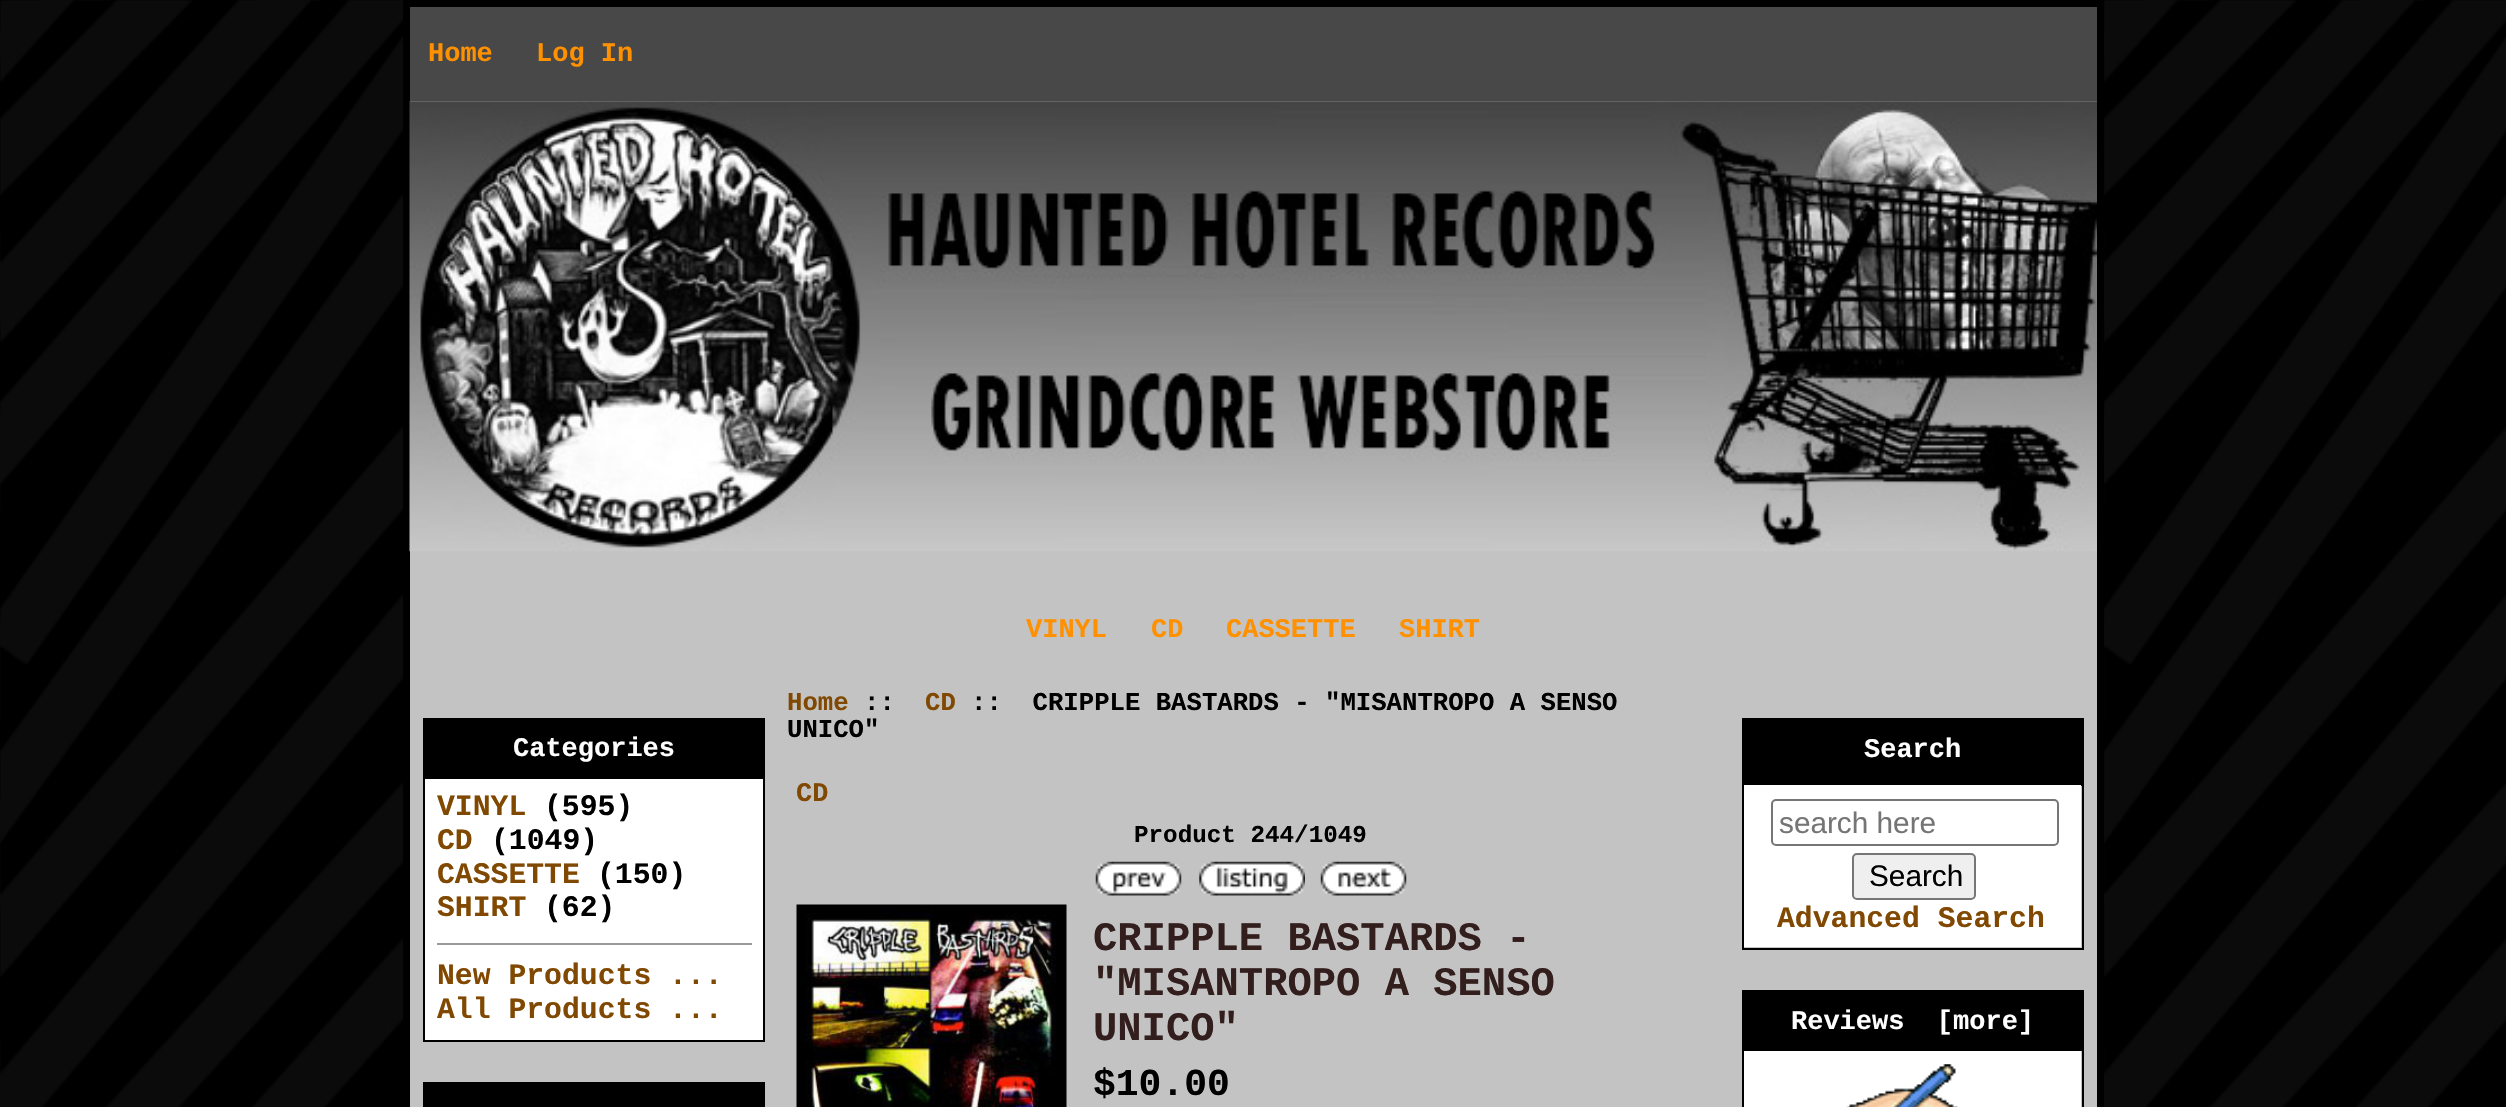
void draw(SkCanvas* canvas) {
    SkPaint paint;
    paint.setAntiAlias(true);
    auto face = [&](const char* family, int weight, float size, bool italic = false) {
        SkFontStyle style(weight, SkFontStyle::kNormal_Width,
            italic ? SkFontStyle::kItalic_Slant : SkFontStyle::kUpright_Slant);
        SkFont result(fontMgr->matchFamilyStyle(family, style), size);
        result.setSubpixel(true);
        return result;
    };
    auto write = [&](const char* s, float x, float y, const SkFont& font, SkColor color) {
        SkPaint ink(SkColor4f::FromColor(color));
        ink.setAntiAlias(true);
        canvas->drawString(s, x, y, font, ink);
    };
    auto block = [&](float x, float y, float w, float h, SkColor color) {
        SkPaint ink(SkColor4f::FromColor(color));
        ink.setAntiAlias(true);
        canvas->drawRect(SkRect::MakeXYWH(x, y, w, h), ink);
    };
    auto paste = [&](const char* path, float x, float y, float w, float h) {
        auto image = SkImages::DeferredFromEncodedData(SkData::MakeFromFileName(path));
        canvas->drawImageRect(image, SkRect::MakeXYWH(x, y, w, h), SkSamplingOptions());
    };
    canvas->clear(SK_ColorWHITE);
    paste("pic1.png", 0, 0, 2506, 1107);
    block(410, 101, 1687, 1006, SkColorSetRGB(195, 195, 195));
    paint.setStyle(SkPaint::kStroke_Style);
    paint.setStrokeWidth(7);
    paint.setColor(SK_ColorBLACK);
    canvas->drawRect(SkRect::MakeXYWH(406.5f, 3.5f, 1694, 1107), paint);
    block(410, 7, 1687, 94, SkColorSetRGB(72, 72, 72));
    auto kFont1 = face("Liberation Mono", 700, 27);
    write("Home", 428, 61, kFont1, SkColorSetRGB(255, 144, 0));
    write("Log In", 536, 61, kFont1, SkColorSetRGB(255, 144, 0));
    paste("pic2.png", 409, 101, 1688, 451);
    write("VINYL", 1026, 637, kFont1, SkColorSetRGB(255, 144, 0));
    write("CD", 1151, 637, kFont1, SkColorSetRGB(255, 144, 0));
    write("CASSETTE", 1226, 637, kFont1, SkColorSetRGB(255, 144, 0));
    write("SHIRT", 1399, 637, kFont1, SkColorSetRGB(255, 144, 0));
    paint.setStrokeWidth(2);
    canvas->drawRect(SkRect::MakeXYWH(424, 719, 340, 322), paint);
    block(425, 720, 338, 59, SK_ColorBLACK);
    write("Categories", 513, 756, kFont1, SK_ColorWHITE);
    block(425, 779, 338, 261, SK_ColorWHITE);
    auto kFont2 = face("Liberation Mono", 700, 29.75f);
    write("VINYL", 437, 815, kFont2, SkColorSetRGB(128, 72, 0));
    write("(595)", 544, 815, kFont2, SK_ColorBLACK);
    write("CD", 437, 849, kFont2, SkColorSetRGB(128, 72, 0));
    write("(1049)", 491, 849, kFont2, SK_ColorBLACK);
    write("CASSETTE", 437, 883, kFont2, SkColorSetRGB(128, 72, 0));
    write("(150)", 597, 883, kFont2, SK_ColorBLACK);
    write("SHIRT", 437, 916, kFont2, SkColorSetRGB(128, 72, 0));
    write("(62)", 544, 916, kFont2, SK_ColorBLACK);
    block(437, 943, 315, 2, SkColorSetRGB(154, 154, 154));
    write("New Products ...", 437, 984, kFont2, SkColorSetRGB(128, 72, 0));
    write("All Products ...", 437, 1018, kFont2, SkColorSetRGB(128, 72, 0));
    canvas->drawRect(SkRect::MakeXYWH(424, 1083, 340, 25), paint);
    block(425, 1084, 338, 23, SK_ColorBLACK);
    auto kFont3 = face("Liberation Mono", 700, 25.65f);
    write("Home", 787, 710, kFont3, SkColorSetRGB(128, 72, 0));
    write("::", 864, 710, kFont3, SK_ColorBLACK);
    write("CD", 925, 710, kFont3, SkColorSetRGB(128, 72, 0));
    write("::  CRIPPLE BASTARDS - \"MISANTROPO A SENSO", 971, 710, kFont3, SK_ColorBLACK);
    write("UNICO\"", 787, 737, kFont3, SK_ColorBLACK);
    write("CD", 796, 801, kFont1, SkColorSetRGB(128, 72, 0));
    auto kFont4 = face("Liberation Mono", 700, 24.25f);
    write("Product 244/1049", 1134, 842, kFont4, SK_ColorBLACK);
    paste("pic3.png", 1095, 861, 87, 35);
    paste("pic4.png", 1199, 861, 106, 35);
    paste("pic5.png", 1320, 861, 87, 35);
    paste("pic6.png", 796, 904, 271, 203);
    auto kFont5 = face("Liberation Mono", 700, 40.5f);
    write("CRIPPLE BASTARDS -", 1093, 950, kFont5, SkColorSetRGB(51, 30, 30));
    write("\"MISANTROPO A SENSO", 1093, 995, kFont5, SkColorSetRGB(51, 30, 30));
    write("UNICO\"", 1093, 1040, kFont5, SkColorSetRGB(51, 30, 30));
    auto kFont6 = face("Liberation Mono", 700, 38);
    write("$10.00", 1093, 1095, kFont6, SK_ColorBLACK);
    canvas->drawRect(SkRect::MakeXYWH(1743, 719, 340, 230), paint);
    block(1744, 720, 338, 66, SK_ColorBLACK);
    write("Search", 1864, 757, kFont1, SK_ColorWHITE);
    block(1744, 785, 337, 162, SK_ColorWHITE);
    paint.setColor(SkColorSetRGB(118, 118, 118));
    canvas->drawRoundRect(SkRect::MakeXYWH(1772, 800, 286, 45), 4, 4, paint);
    auto kFont7 = face("Liberation Sans", 400, 29.75f);
    write("search here", 1779, 833, kFont7, SkColorSetRGB(117, 117, 117));
    paint.setStyle(SkPaint::kFill_Style);
    paint.setColor(SkColorSetRGB(239, 239, 239));
    canvas->drawRoundRect(SkRect::MakeXYWH(1853, 854, 122, 45), 4, 4, paint);
    paint.setStyle(SkPaint::kStroke_Style);
    paint.setColor(SkColorSetRGB(118, 118, 118));
    canvas->drawRoundRect(SkRect::MakeXYWH(1853, 854, 122, 45), 4, 4, paint);
    write("Search", 1869, 886, kFont7, SK_ColorBLACK);
    write("Advanced Search", 1777, 927, kFont2, SkColorSetRGB(128, 72, 0));
    paint.setColor(SK_ColorBLACK);
    canvas->drawRect(SkRect::MakeXYWH(1743, 991, 340, 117), paint);
    block(1744, 992, 338, 59, SK_ColorBLACK);
    write("Reviews  [more]", 1791, 1029, kFont1, SK_ColorWHITE);
    block(1744, 1051, 337, 56, SK_ColorWHITE);
    paste("pic7.png", 1846, 1064, 112, 43);
}
